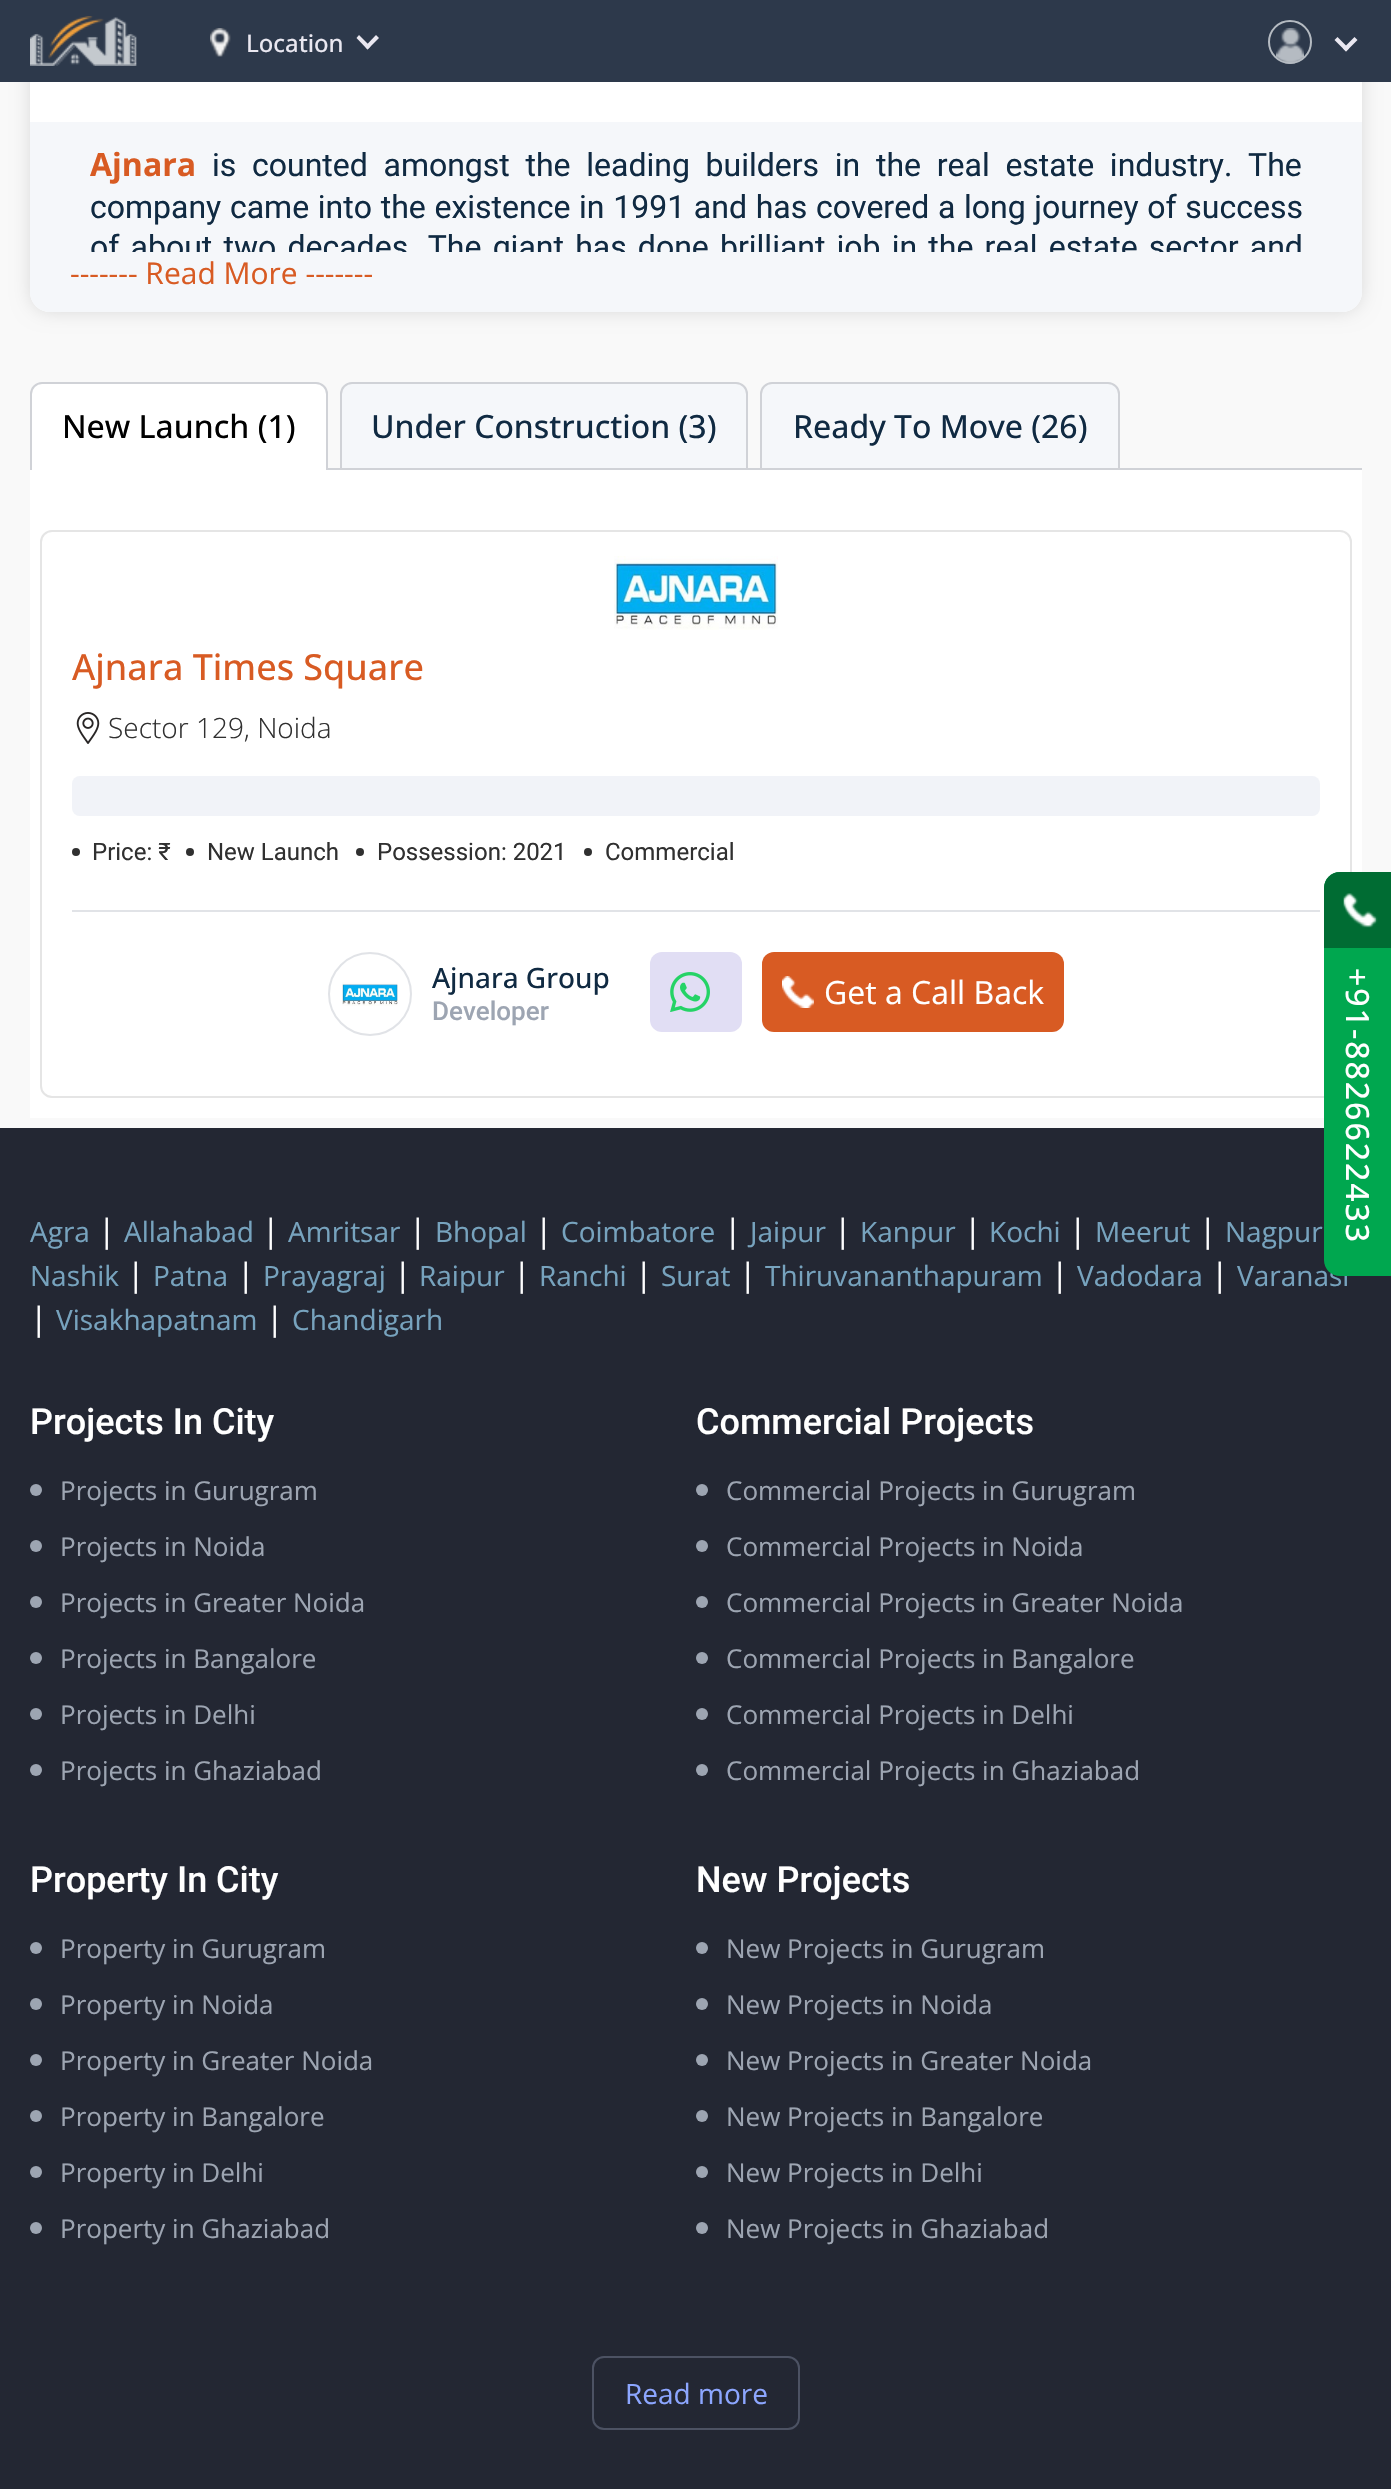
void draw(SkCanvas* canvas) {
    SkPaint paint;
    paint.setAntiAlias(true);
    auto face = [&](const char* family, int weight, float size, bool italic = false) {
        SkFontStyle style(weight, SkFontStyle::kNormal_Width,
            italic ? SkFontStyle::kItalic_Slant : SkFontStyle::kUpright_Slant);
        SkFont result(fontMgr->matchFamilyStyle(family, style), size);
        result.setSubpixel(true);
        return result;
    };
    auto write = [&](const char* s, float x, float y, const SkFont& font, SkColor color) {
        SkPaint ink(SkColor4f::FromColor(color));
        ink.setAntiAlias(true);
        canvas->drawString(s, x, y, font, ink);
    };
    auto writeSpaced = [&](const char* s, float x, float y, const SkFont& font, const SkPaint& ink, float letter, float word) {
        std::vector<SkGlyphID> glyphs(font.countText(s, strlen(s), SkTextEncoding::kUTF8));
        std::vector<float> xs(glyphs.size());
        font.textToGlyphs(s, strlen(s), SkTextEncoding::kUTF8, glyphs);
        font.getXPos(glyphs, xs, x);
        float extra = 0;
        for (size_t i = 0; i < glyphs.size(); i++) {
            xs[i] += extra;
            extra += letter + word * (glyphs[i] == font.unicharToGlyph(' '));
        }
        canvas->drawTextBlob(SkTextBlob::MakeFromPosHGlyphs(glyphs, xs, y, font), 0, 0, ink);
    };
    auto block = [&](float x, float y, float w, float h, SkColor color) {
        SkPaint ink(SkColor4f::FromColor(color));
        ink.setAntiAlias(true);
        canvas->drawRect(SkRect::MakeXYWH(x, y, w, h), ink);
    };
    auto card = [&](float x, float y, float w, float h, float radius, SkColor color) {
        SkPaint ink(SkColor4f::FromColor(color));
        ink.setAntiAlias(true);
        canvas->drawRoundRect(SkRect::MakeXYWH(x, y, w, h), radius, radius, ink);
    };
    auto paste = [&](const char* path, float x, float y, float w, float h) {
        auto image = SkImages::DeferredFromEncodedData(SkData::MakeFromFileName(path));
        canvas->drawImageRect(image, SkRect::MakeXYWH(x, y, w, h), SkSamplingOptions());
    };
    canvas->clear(SkColorSetRGB(249, 249, 249));
    paint.setColor(SkColorSetARGB(38, 0, 0, 0));
    paint.setMaskFilter(SkMaskFilter::MakeBlur(kNormal_SkBlurStyle, 10));
    canvas->drawRoundRect(SkRect::MakeXYWH(32, -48, 1328, 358), 18, 18, paint);
    paint.setMaskFilter(nullptr);
    card(30, -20, 1332, 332, 20, SK_ColorWHITE);
    block(0, 0, 1391, 82, SkColorSetRGB(45, 57, 75));
    paste("pic1.png", 30, 16, 107, 50);
    paste("pic2.png", 210, 28, 21, 29);
    auto kFont1 = face("Open Sans", 500, 24);
    write("Location", 246, 52, kFont1, SkColorSetRGB(234, 232, 241));
    paint.setColor(SkColorSetRGB(234, 232, 241));
    canvas->drawPath(SkPathBuilder().moveTo(376, 35).lineTo(379, 38).lineTo(367.5f, 49.5f).lineTo(365, 46.5f).close().detach(), paint);
    canvas->drawPath(SkPathBuilder().moveTo(359, 35).lineTo(370.5f, 46.5f).lineTo(367.5f, 49.5f).lineTo(356.5f, 38).close().detach(), paint);
    paste("pic3.png", 1276, 28, 28, 36);
    paint.setStyle(SkPaint::kStroke_Style);
    paint.setStrokeWidth(2);
    paint.setColor(SkColorSetRGB(181, 187, 194));
    canvas->drawCircle(1290, 42, 21, paint);
    paint.setStyle(SkPaint::kFill_Style);
    paint.setColor(SkColorSetRGB(234, 232, 241));
    canvas->drawPath(SkPathBuilder().moveTo(1354.5f, 37).lineTo(1357.5f, 40).lineTo(1346, 51.5f).lineTo(1343, 48.5f).close().detach(), paint);
    canvas->drawPath(SkPathBuilder().moveTo(1337.5f, 37).lineTo(1349, 48.5f).lineTo(1346, 51.5f).lineTo(1334.5f, 40).close().detach(), paint);
    paint.setColor(SkColorSetRGB(245, 247, 250));
    canvas->drawPath(SkPathBuilder().moveTo(30, 122).lineTo(1362, 122).lineTo(1362, 292).cubicTo(1362, 303, 1353, 312, 1342, 312).lineTo(50, 312).cubicTo(39, 312, 30, 303, 30, 292).close().detach(), paint);
    auto kFont2 = face("Open Sans", 700, 32);
    write("Ajnara", 90, 176, kFont2, SkColorSetRGB(216, 91, 35));
    auto kFont3 = face("Roboto", 400, 32);
    paint.setColor(SkColorSetRGB(16, 42, 66));
    writeSpaced("is counted amongst the leading builders in the real estate industry. The", 212, 176, kFont3, paint, 0, 7.75f);
    writeSpaced("company came into the existence in 1991 and has covered a long journey of success", 90, 218, kFont3, paint, 0, 0.75f);
    canvas->save();
    canvas->clipPath(SkPathBuilder().moveTo(90, 142).lineTo(1302, 142).cubicTo(1313, 142, 1322, 151, 1322, 162).lineTo(1322, 232).cubicTo(1322, 243, 1313, 252, 1302, 252).lineTo(90, 252).cubicTo(79, 252, 70, 243, 70, 232).lineTo(70, 162).cubicTo(70, 151, 79, 142, 90, 142).close().detach(), true);
    writeSpaced("of about two decades. The giant has done brilliant job in the real estate sector and", 90, 258, kFont3, paint, 0, 3.25f);
    canvas->restore();
    auto kFont4 = face("Open Sans", 400, 30);
    write("------- Read More -------", 70, 284, kFont4, SkColorSetRGB(216, 91, 35));
    paint.setColor(SK_ColorWHITE);
    canvas->drawPath(SkPathBuilder().moveTo(42, 383).lineTo(316, 383).cubicTo(322, 383, 327, 388, 327, 394).lineTo(327, 469).lineTo(31, 469).lineTo(31, 394).cubicTo(31, 388, 36, 383, 42, 383).close().detach(), paint);
    paint.setStyle(SkPaint::kStroke_Style);
    paint.setColor(SkColorSetRGB(208, 210, 215));
    canvas->drawPath(SkPathBuilder().moveTo(42, 383).lineTo(316, 383).cubicTo(322, 383, 327, 388, 327, 394).lineTo(327, 469).lineTo(31, 469).lineTo(31, 394).cubicTo(31, 388, 36, 383, 42, 383).close().detach(), paint);
    auto kFont5 = face("Open Sans", 500, 32);
    write("New Launch (1)", 62, 438, kFont5, SK_ColorBLACK);
    block(32, 468, 294, 2, SK_ColorWHITE);
    paint.setStyle(SkPaint::kFill_Style);
    paint.setColor(SkColorSetRGB(245, 247, 250));
    canvas->drawPath(SkPathBuilder().moveTo(352, 383).lineTo(736, 383).cubicTo(742, 383, 747, 388, 747, 394).lineTo(747, 469).lineTo(341, 469).lineTo(341, 394).cubicTo(341, 388, 346, 383, 352, 383).close().detach(), paint);
    paint.setStyle(SkPaint::kStroke_Style);
    paint.setColor(SkColorSetRGB(208, 210, 215));
    canvas->drawPath(SkPathBuilder().moveTo(352, 383).lineTo(736, 383).cubicTo(742, 383, 747, 388, 747, 394).lineTo(747, 469).lineTo(341, 469).lineTo(341, 394).cubicTo(341, 388, 346, 383, 352, 383).close().detach(), paint);
    write("Under Construction (3)", 371, 438, kFont5, SkColorSetRGB(16, 42, 66));
    paint.setStyle(SkPaint::kFill_Style);
    paint.setColor(SkColorSetRGB(245, 247, 250));
    canvas->drawPath(SkPathBuilder().moveTo(772, 383).lineTo(1108, 383).cubicTo(1114, 383, 1119, 388, 1119, 394).lineTo(1119, 469).lineTo(761, 469).lineTo(761, 394).cubicTo(761, 388, 766, 383, 772, 383).close().detach(), paint);
    paint.setStyle(SkPaint::kStroke_Style);
    paint.setColor(SkColorSetRGB(208, 210, 215));
    canvas->drawPath(SkPathBuilder().moveTo(772, 383).lineTo(1108, 383).cubicTo(1114, 383, 1119, 388, 1119, 394).lineTo(1119, 469).lineTo(761, 469).lineTo(761, 394).cubicTo(761, 388, 766, 383, 772, 383).close().detach(), paint);
    write("Ready To Move (26)", 793, 438, kFont5, SkColorSetRGB(16, 42, 66));
    block(30, 470, 1332, 648, SK_ColorWHITE);
    block(328, 468, 1034, 2, SkColorSetRGB(208, 210, 215));
    paint.setColor(SkColorSetRGB(229, 229, 229));
    canvas->drawRoundRect(SkRect::MakeXYWH(41, 531, 1310, 566), 11, 11, paint);
    paste("pic4.png", 614, 556, 164, 74);
    auto kFont6 = face("Open Sans", 500, 36);
    write("Ajnara Times Square", 72, 680, kFont6, SkColorSetRGB(216, 91, 35));
    paste("pic5.png", 76, 712, 24, 32);
    auto kFont7 = face("Open Sans", 300, 28);
    write("Sector 129, Noida", 108, 738, kFont7, SkColorSetRGB(48, 48, 48));
    card(72, 776, 1248, 40, 8, SkColorSetRGB(241, 243, 248));
    block(72, 910, 1248, 2, SkColorSetRGB(225, 227, 231));
    paint.setStyle(SkPaint::kFill_Style);
    paint.setColor(SkColorSetRGB(48, 48, 48));
    canvas->drawCircle(76, 852, 4, paint);
    auto kFont8 = face("Roboto", 400, 24);
    write("Price: ₹", 92, 860, kFont8, SkColorSetRGB(48, 48, 48));
    canvas->drawCircle(190, 852, 4, paint);
    write("New Launch", 207, 860, kFont8, SkColorSetRGB(48, 48, 48));
    canvas->drawCircle(360, 852, 4, paint);
    write("Possession: 2021", 377, 860, kFont8, SkColorSetRGB(48, 48, 48));
    canvas->drawCircle(588, 852, 4, paint);
    write("Commercial", 605, 860, kFont8, SkColorSetRGB(48, 48, 48));
    paint.setStyle(SkPaint::kStroke_Style);
    paint.setColor(SkColorSetRGB(225, 227, 231));
    canvas->drawCircle(370, 994, 41, paint);
    paste("pic6.png", 342, 982, 56, 24);
    auto kFont9 = face("Open Sans", 500, 28);
    write("Ajnara Group", 432, 988, kFont9, SkColorSetRGB(16, 42, 66));
    auto kFont10 = face("Roboto", 500, 26);
    write("Developer", 432, 1020, kFont10, SkColorSetRGB(157, 165, 178));
    card(650, 952, 92, 80, 12, SkColorSetRGB(225, 222, 244));
    paste("pic7.png", 670, 972, 40, 40);
    card(762, 952, 302, 80, 12, SkColorSetRGB(216, 91, 35));
    paste("pic8.png", 782, 976, 32, 32);
    auto kFont11 = face("Open Sans", 400, 32);
    write("Get a Call Back", 824, 1004, kFont11, SK_ColorWHITE);
    block(0, 1128, 1391, 1361, SkColorSetRGB(35, 39, 51));
    auto kFont12 = face("Open Sans", 400, 28);
    write("Varanasi", 1237, 1286, kFont12, SkColorSetRGB(119, 163, 190));
    paint.setStyle(SkPaint::kFill_Style);
    paint.setColor(SkColorSetRGB(0, 167, 79));
    canvas->drawPath(SkPathBuilder().moveTo(1340, 872).lineTo(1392, 872).lineTo(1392, 1276).lineTo(1340, 1276).cubicTo(1331, 1276, 1324, 1269, 1324, 1260).lineTo(1324, 888).cubicTo(1324, 879, 1331, 872, 1340, 872).close().detach(), paint);
    paint.setColor(SkColorSetRGB(0, 108, 51));
    canvas->drawPath(SkPathBuilder().moveTo(1340, 872).lineTo(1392, 872).lineTo(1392, 948).lineTo(1324, 948).lineTo(1324, 888).cubicTo(1324, 879, 1331, 872, 1340, 872).close().detach(), paint);
    paste("pic9.png", 1343, 893, 35, 35);
    paint.setColor(SK_ColorWHITE);
    canvas->save();
    canvas->rotate(90, 1346, 968);
    writeSpaced("+91-8826622433", 1346, 968, kFont5, paint, 2, 0);
    canvas->restore();
    write("Agra", 30, 1242, kFont12, SkColorSetRGB(119, 163, 190));
    write("|", 98, 1242, kFont11, SK_ColorWHITE);
    write("Allahabad", 124, 1242, kFont12, SkColorSetRGB(119, 163, 190));
    write("|", 262, 1242, kFont11, SK_ColorWHITE);
    write("Amritsar", 288, 1242, kFont12, SkColorSetRGB(119, 163, 190));
    write("|", 409, 1242, kFont11, SK_ColorWHITE);
    write("Bhopal", 435, 1242, kFont12, SkColorSetRGB(119, 163, 190));
    write("|", 535, 1242, kFont11, SK_ColorWHITE);
    write("Coimbatore", 561, 1242, kFont12, SkColorSetRGB(119, 163, 190));
    write("|", 724, 1242, kFont11, SK_ColorWHITE);
    write("Jaipur", 750, 1242, kFont12, SkColorSetRGB(119, 163, 190));
    write("|", 834, 1242, kFont11, SK_ColorWHITE);
    write("Kanpur", 860, 1242, kFont12, SkColorSetRGB(119, 163, 190));
    write("|", 964, 1242, kFont11, SK_ColorWHITE);
    write("Kochi", 989, 1242, kFont12, SkColorSetRGB(119, 163, 190));
    write("|", 1069, 1242, kFont11, SK_ColorWHITE);
    write("Meerut", 1095, 1242, kFont12, SkColorSetRGB(119, 163, 190));
    write("|", 1199, 1242, kFont11, SK_ColorWHITE);
    write("Nagpur", 1225, 1242, kFont12, SkColorSetRGB(119, 163, 190));
    write("Nashik", 30, 1286, kFont12, SkColorSetRGB(119, 163, 190));
    write("|", 127, 1286, kFont11, SK_ColorWHITE);
    write("Patna", 153, 1286, kFont12, SkColorSetRGB(119, 163, 190));
    write("|", 237, 1286, kFont11, SK_ColorWHITE);
    write("Prayagraj", 263, 1286, kFont12, SkColorSetRGB(119, 163, 190));
    write("|", 394, 1286, kFont11, SK_ColorWHITE);
    write("Raipur", 419, 1286, kFont12, SkColorSetRGB(119, 163, 190));
    write("|", 513, 1286, kFont11, SK_ColorWHITE);
    write("Ranchi", 539, 1286, kFont12, SkColorSetRGB(119, 163, 190));
    write("|", 635, 1286, kFont11, SK_ColorWHITE);
    write("Surat", 661, 1286, kFont12, SkColorSetRGB(119, 163, 190));
    write("|", 739, 1286, kFont11, SK_ColorWHITE);
    write("Thiruvananthapuram", 765, 1286, kFont12, SkColorSetRGB(119, 163, 190));
    write("|", 1051, 1286, kFont11, SK_ColorWHITE);
    write("Vadodara", 1077, 1286, kFont12, SkColorSetRGB(119, 163, 190));
    write("|", 1211, 1286, kFont11, SK_ColorWHITE);
    write("|", 30, 1330, kFont11, SK_ColorWHITE);
    write("Visakhapatnam", 56, 1330, kFont12, SkColorSetRGB(119, 163, 190));
    write("|", 266, 1330, kFont11, SK_ColorWHITE);
    write("Chandigarh", 292, 1330, kFont12, SkColorSetRGB(119, 163, 190));
    auto kFont13 = face("Roboto", 500, 36);
    write("Projects In City", 30, 1434, kFont13, SK_ColorWHITE);
    paint.setColor(SkColorSetRGB(157, 165, 178));
    canvas->drawCircle(36, 1490, 6, paint);
    auto kFont14 = face("Open Sans", 400, 26);
    write("Projects in Gurugram", 60, 1500, kFont14, SkColorSetRGB(157, 165, 178));
    canvas->drawCircle(36, 1546, 6, paint);
    write("Projects in Noida", 60, 1556, kFont14, SkColorSetRGB(157, 165, 178));
    canvas->drawCircle(36, 1602, 6, paint);
    write("Projects in Greater Noida", 60, 1612, kFont14, SkColorSetRGB(157, 165, 178));
    canvas->drawCircle(36, 1658, 6, paint);
    write("Projects in Bangalore", 60, 1668, kFont14, SkColorSetRGB(157, 165, 178));
    canvas->drawCircle(36, 1714, 6, paint);
    write("Projects in Delhi", 60, 1724, kFont14, SkColorSetRGB(157, 165, 178));
    canvas->drawCircle(36, 1770, 6, paint);
    write("Projects in Ghaziabad", 60, 1780, kFont14, SkColorSetRGB(157, 165, 178));
    write("Commercial Projects", 696, 1434, kFont13, SK_ColorWHITE);
    canvas->drawCircle(702, 1490, 6, paint);
    write("Commercial Projects in Gurugram", 726, 1500, kFont14, SkColorSetRGB(157, 165, 178));
    canvas->drawCircle(702, 1546, 6, paint);
    write("Commercial Projects in Noida", 726, 1556, kFont14, SkColorSetRGB(157, 165, 178));
    canvas->drawCircle(702, 1602, 6, paint);
    write("Commercial Projects in Greater Noida", 726, 1612, kFont14, SkColorSetRGB(157, 165, 178));
    canvas->drawCircle(702, 1658, 6, paint);
    write("Commercial Projects in Bangalore", 726, 1668, kFont14, SkColorSetRGB(157, 165, 178));
    canvas->drawCircle(702, 1714, 6, paint);
    write("Commercial Projects in Delhi", 726, 1724, kFont14, SkColorSetRGB(157, 165, 178));
    canvas->drawCircle(702, 1770, 6, paint);
    write("Commercial Projects in Ghaziabad", 726, 1780, kFont14, SkColorSetRGB(157, 165, 178));
    write("Property In City", 30, 1892, kFont13, SK_ColorWHITE);
    canvas->drawCircle(36, 1948, 6, paint);
    write("Property in Gurugram", 60, 1958, kFont14, SkColorSetRGB(157, 165, 178));
    canvas->drawCircle(36, 2004, 6, paint);
    write("Property in Noida", 60, 2014, kFont14, SkColorSetRGB(157, 165, 178));
    canvas->drawCircle(36, 2060, 6, paint);
    write("Property in Greater Noida", 60, 2070, kFont14, SkColorSetRGB(157, 165, 178));
    canvas->drawCircle(36, 2116, 6, paint);
    write("Property in Bangalore", 60, 2126, kFont14, SkColorSetRGB(157, 165, 178));
    canvas->drawCircle(36, 2172, 6, paint);
    write("Property in Delhi", 60, 2182, kFont14, SkColorSetRGB(157, 165, 178));
    canvas->drawCircle(36, 2228, 6, paint);
    write("Property in Ghaziabad", 60, 2238, kFont14, SkColorSetRGB(157, 165, 178));
    write("New Projects", 696, 1892, kFont13, SK_ColorWHITE);
    canvas->drawCircle(702, 1948, 6, paint);
    write("New Projects in Gurugram", 726, 1958, kFont14, SkColorSetRGB(157, 165, 178));
    canvas->drawCircle(702, 2004, 6, paint);
    write("New Projects in Noida", 726, 2014, kFont14, SkColorSetRGB(157, 165, 178));
    canvas->drawCircle(702, 2060, 6, paint);
    write("New Projects in Greater Noida", 726, 2070, kFont14, SkColorSetRGB(157, 165, 178));
    canvas->drawCircle(702, 2116, 6, paint);
    write("New Projects in Bangalore", 726, 2126, kFont14, SkColorSetRGB(157, 165, 178));
    canvas->drawCircle(702, 2172, 6, paint);
    write("New Projects in Delhi", 726, 2182, kFont14, SkColorSetRGB(157, 165, 178));
    canvas->drawCircle(702, 2228, 6, paint);
    write("New Projects in Ghaziabad", 726, 2238, kFont14, SkColorSetRGB(157, 165, 178));
    paint.setStyle(SkPaint::kStroke_Style);
    paint.setColor(SkColorSetRGB(76, 82, 99));
    canvas->drawRoundRect(SkRect::MakeXYWH(593, 2357, 206, 72), 11, 11, paint);
    write("Read more", 625, 2404, kFont12, SkColorSetRGB(140, 166, 255));
}
